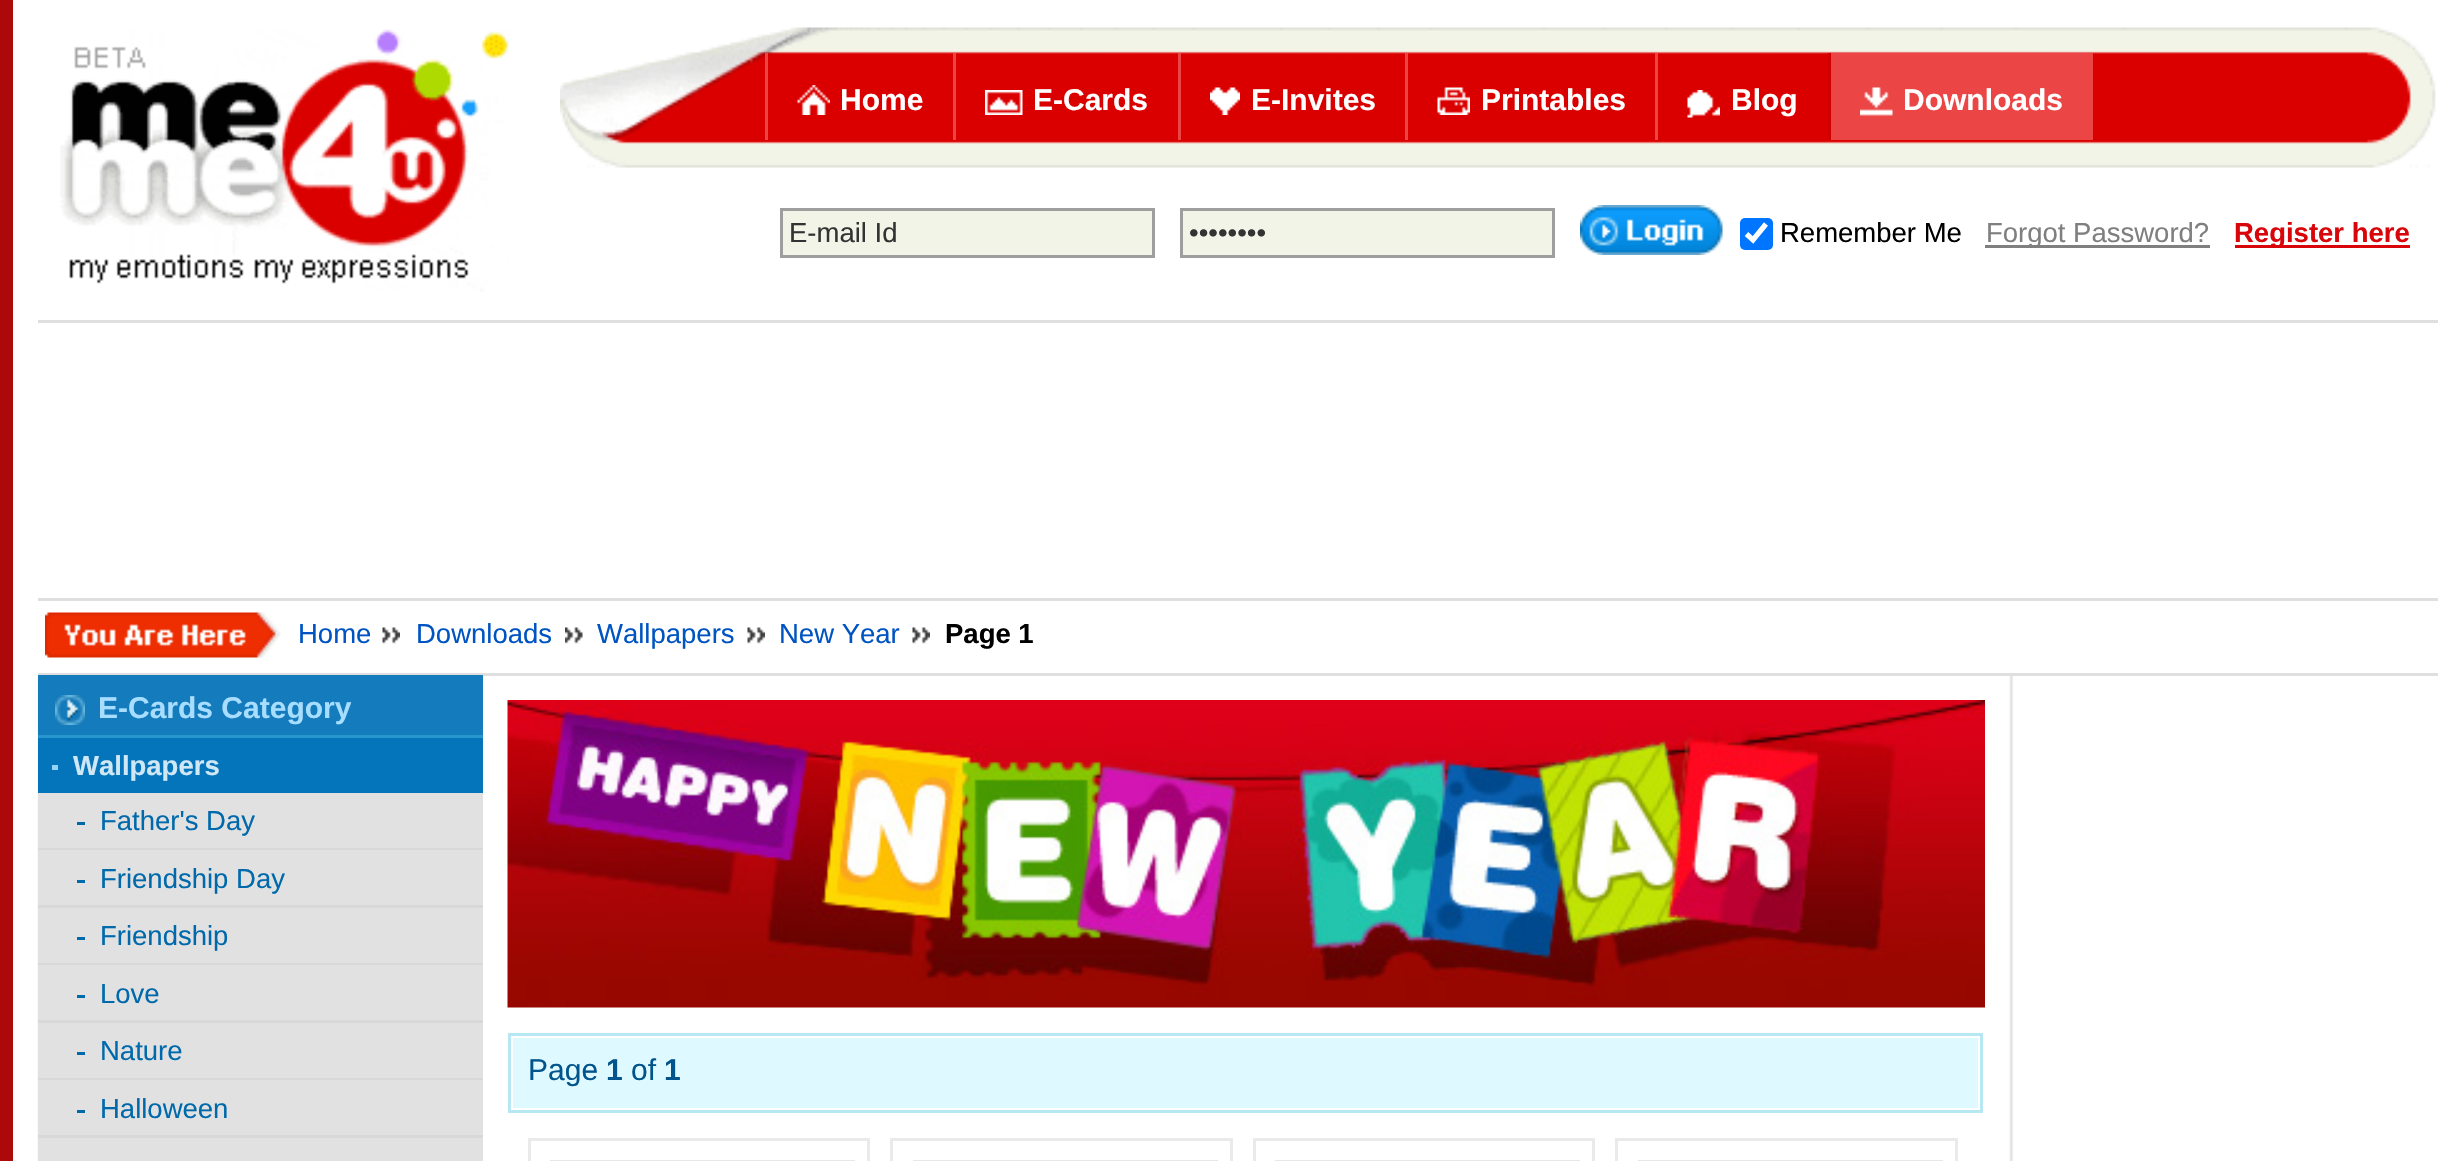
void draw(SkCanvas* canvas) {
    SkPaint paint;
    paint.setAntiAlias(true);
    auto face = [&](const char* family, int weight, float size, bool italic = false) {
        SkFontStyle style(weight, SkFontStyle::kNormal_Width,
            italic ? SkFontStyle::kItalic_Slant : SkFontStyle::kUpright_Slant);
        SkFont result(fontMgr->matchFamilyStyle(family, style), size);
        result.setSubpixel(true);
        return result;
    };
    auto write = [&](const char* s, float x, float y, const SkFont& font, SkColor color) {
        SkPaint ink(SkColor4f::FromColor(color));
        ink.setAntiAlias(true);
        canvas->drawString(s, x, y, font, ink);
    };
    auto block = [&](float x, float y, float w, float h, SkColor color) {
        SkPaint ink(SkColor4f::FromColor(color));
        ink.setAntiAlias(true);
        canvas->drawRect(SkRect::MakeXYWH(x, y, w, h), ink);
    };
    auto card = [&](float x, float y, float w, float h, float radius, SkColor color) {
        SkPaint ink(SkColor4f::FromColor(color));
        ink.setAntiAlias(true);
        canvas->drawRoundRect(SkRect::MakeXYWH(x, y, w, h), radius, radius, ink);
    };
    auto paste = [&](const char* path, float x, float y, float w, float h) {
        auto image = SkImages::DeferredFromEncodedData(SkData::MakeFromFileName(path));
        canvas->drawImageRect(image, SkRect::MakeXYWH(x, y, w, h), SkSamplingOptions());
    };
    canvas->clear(SK_ColorWHITE);
    block(0, 0, 13, 1161, SkColorSetRGB(172, 9, 10));
    paste("pic1.png", 60, 29, 450, 263);
    paste("pic2.png", 560, 27, 1876, 141);
    block(765, 53, 3, 87, SkColorSetRGB(235, 69, 69));
    paste("pic3.png", 797, 85, 33, 30);
    auto kFont1 = face("Liberation Sans", 700, 30);
    write("Home", 840, 110, kFont1, SK_ColorWHITE);
    block(953, 53, 3, 87, SkColorSetRGB(235, 69, 69));
    paste("pic4.png", 985, 90, 38, 25);
    write("E-Cards", 1033, 110, kFont1, SK_ColorWHITE);
    block(1178, 53, 3, 87, SkColorSetRGB(235, 69, 69));
    paste("pic5.png", 1210, 87, 30, 28);
    write("E-Invites", 1251, 110, kFont1, SK_ColorWHITE);
    block(1405, 53, 3, 87, SkColorSetRGB(235, 69, 69));
    paste("pic6.png", 1437, 87, 33, 28);
    write("Printables", 1481, 110, kFont1, SK_ColorWHITE);
    block(1655, 53, 3, 87, SkColorSetRGB(235, 69, 69));
    paste("pic7.png", 1687, 90, 33, 28);
    write("Blog", 1731, 110, kFont1, SK_ColorWHITE);
    block(1831, 53, 262, 87, SkColorSetRGB(235, 69, 69));
    block(1828, 53, 3, 87, SkColorSetRGB(206, 0, 0));
    paste("pic8.png", 1860, 87, 33, 29);
    write("Downloads", 1903, 110, kFont1, SK_ColorWHITE);
    paint.setColor(SkColorSetRGB(243, 244, 232));
    canvas->drawRect(SkRect::MakeXYWH(781.5f, 209.5f, 372, 47), paint);
    paint.setStyle(SkPaint::kStroke_Style);
    paint.setStrokeWidth(3);
    paint.setColor(SkColorSetRGB(158, 158, 158));
    canvas->drawRect(SkRect::MakeXYWH(781.5f, 209.5f, 372, 47), paint);
    auto kFont2 = face("Liberation Sans", 400, 27.5f);
    write("E-mail Id", 789, 242, kFont2, SkColorSetRGB(51, 51, 51));
    paint.setStyle(SkPaint::kFill_Style);
    paint.setColor(SkColorSetRGB(243, 244, 232));
    canvas->drawRect(SkRect::MakeXYWH(1181.5f, 209.5f, 372, 47), paint);
    paint.setStyle(SkPaint::kStroke_Style);
    paint.setColor(SkColorSetRGB(158, 158, 158));
    canvas->drawRect(SkRect::MakeXYWH(1181.5f, 209.5f, 372, 47), paint);
    write("••••••••", 1189, 242, kFont2, SkColorSetRGB(51, 51, 51));
    paste("pic9.png", 1580, 205, 143, 50);
    card(1740, 218, 33, 32, 5, SkColorSetRGB(0, 117, 255));
    paint.setStrokeWidth(5.2f);
    paint.setColor(SK_ColorWHITE);
    canvas->drawPath(SkPathBuilder().moveTo(1746.5f, 234).lineTo(1753, 240).lineTo(1766, 224).detach(), paint);
    write("Remember Me", 1780, 242, kFont2, SK_ColorBLACK);
    block(1985, 245, 225, 3, SkColorSetRGB(127, 127, 127));
    write("Forgot Password?", 1986, 242, kFont2, SkColorSetRGB(127, 127, 127));
    block(2235, 245, 175, 3, SkColorSetRGB(216, 6, 10));
    auto kFont3 = face("Liberation Sans", 700, 27.5f);
    write("Register here", 2234, 242, kFont3, SkColorSetRGB(216, 6, 10));
    block(38, 320, 2400, 3, SkColorSetRGB(223, 223, 223));
    block(38, 598, 2400, 3, SkColorSetRGB(223, 223, 223));
    block(38, 673, 2400, 3, SkColorSetRGB(223, 223, 223));
    paste("pic10.png", 45, 612, 236, 46);
    write("Home", 298, 643, kFont2, SkColorSetRGB(0, 84, 194));
    paste("pic11.png", 382, 627, 18, 17);
    write("Downloads", 416, 643, kFont2, SkColorSetRGB(0, 84, 194));
    paste("pic12.png", 565, 627, 18, 17);
    write("Wallpapers", 597, 643, kFont2, SkColorSetRGB(0, 84, 194));
    paste("pic13.png", 747, 627, 18, 17);
    write("New Year", 779, 643, kFont2, SkColorSetRGB(0, 84, 194));
    paste("pic13.png", 912, 627, 18, 17);
    write("Page 1", 945, 643, kFont3, SK_ColorBLACK);
    paste("pic14.png", 37, 675, 1977, 486);
    block(38, 675, 445, 60, SkColorSetRGB(20, 123, 188));
    block(38, 735, 445, 3, SkColorSetRGB(39, 150, 204));
    paste("pic15.png", 55, 695, 30, 30);
    write("E-Cards Category", 98, 718, kFont1, SkColorSetRGB(167, 222, 255));
    block(38, 738, 445, 55, SkColorSetRGB(5, 117, 187));
    block(52, 765, 6, 5, SkColorSetRGB(149, 211, 249));
    write("Wallpapers", 73, 775, kFont3, SkColorSetRGB(208, 232, 246));
    block(38, 848, 445, 2, SkColorSetRGB(216, 216, 216));
    block(38, 793, 445, 55, SkColorSetRGB(225, 225, 225));
    block(77, 822, 8, 3, SkColorSetRGB(0, 105, 171));
    write("Father's Day", 100, 830, kFont2, SkColorSetRGB(0, 105, 171));
    block(38, 905, 445, 3, SkColorSetRGB(216, 216, 216));
    block(38, 850, 445, 55, SkColorSetRGB(225, 225, 225));
    block(77, 880, 8, 3, SkColorSetRGB(0, 105, 171));
    write("Friendship Day", 100, 888, kFont2, SkColorSetRGB(0, 105, 171));
    block(38, 963, 445, 2, SkColorSetRGB(216, 216, 216));
    block(38, 908, 445, 55, SkColorSetRGB(225, 225, 225));
    block(77, 937, 8, 3, SkColorSetRGB(0, 105, 171));
    write("Friendship", 100, 945, kFont2, SkColorSetRGB(0, 105, 171));
    block(38, 1020, 445, 3, SkColorSetRGB(216, 216, 216));
    block(38, 965, 445, 55, SkColorSetRGB(225, 225, 225));
    block(77, 995, 8, 3, SkColorSetRGB(0, 105, 171));
    write("Love", 100, 1003, kFont2, SkColorSetRGB(0, 105, 171));
    block(38, 1078, 445, 2, SkColorSetRGB(216, 216, 216));
    block(38, 1023, 445, 55, SkColorSetRGB(225, 225, 225));
    block(77, 1052, 8, 3, SkColorSetRGB(0, 105, 171));
    write("Nature", 100, 1060, kFont2, SkColorSetRGB(0, 105, 171));
    block(38, 1135, 445, 3, SkColorSetRGB(216, 216, 216));
    block(38, 1080, 445, 55, SkColorSetRGB(225, 225, 225));
    block(77, 1110, 8, 3, SkColorSetRGB(0, 105, 171));
    write("Halloween", 100, 1118, kFont2, SkColorSetRGB(0, 105, 171));
    block(38, 1138, 445, 23, SkColorSetRGB(225, 225, 225));
    paste("pic16.png", 507, 700, 1478, 308);
    paint.setStrokeWidth(3);
    paint.setColor(SkColorSetRGB(182, 231, 242));
    canvas->drawRect(SkRect::MakeXYWH(509.5f, 1034.5f, 1472, 77), paint);
    block(513, 1038, 1465, 70, SkColorSetRGB(222, 249, 255));
    auto kFont4 = face("Liberation Sans", 400, 30);
    write("Page", 528, 1080, kFont4, SkColorSetRGB(2, 84, 140));
    write("1", 606, 1080, kFont1, SkColorSetRGB(2, 84, 140));
    write("of", 631, 1080, kFont4, SkColorSetRGB(2, 84, 140));
    write("1", 664, 1080, kFont1, SkColorSetRGB(2, 84, 140));
    paint.setColor(SkColorSetRGB(234, 234, 234));
    canvas->drawRect(SkRect::MakeXYWH(529.5f, 1139.5f, 339, 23), paint);
    paint.setColor(SkColorSetRGB(231, 231, 231));
    canvas->drawRect(SkRect::MakeXYWH(551.5f, 1161.5f, 302, 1), paint);
    paint.setColor(SkColorSetRGB(234, 234, 234));
    canvas->drawRect(SkRect::MakeXYWH(891.5f, 1139.5f, 340, 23), paint);
    paint.setColor(SkColorSetRGB(231, 231, 231));
    canvas->drawRect(SkRect::MakeXYWH(914.5f, 1161.5f, 302, 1), paint);
    paint.setColor(SkColorSetRGB(234, 234, 234));
    canvas->drawRect(SkRect::MakeXYWH(1254.5f, 1139.5f, 339, 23), paint);
    paint.setColor(SkColorSetRGB(231, 231, 231));
    canvas->drawRect(SkRect::MakeXYWH(1276.5f, 1161.5f, 302, 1), paint);
    paint.setColor(SkColorSetRGB(234, 234, 234));
    canvas->drawRect(SkRect::MakeXYWH(1616.5f, 1139.5f, 340, 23), paint);
    paint.setColor(SkColorSetRGB(231, 231, 231));
    canvas->drawRect(SkRect::MakeXYWH(1639.5f, 1161.5f, 302, 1), paint);
}
